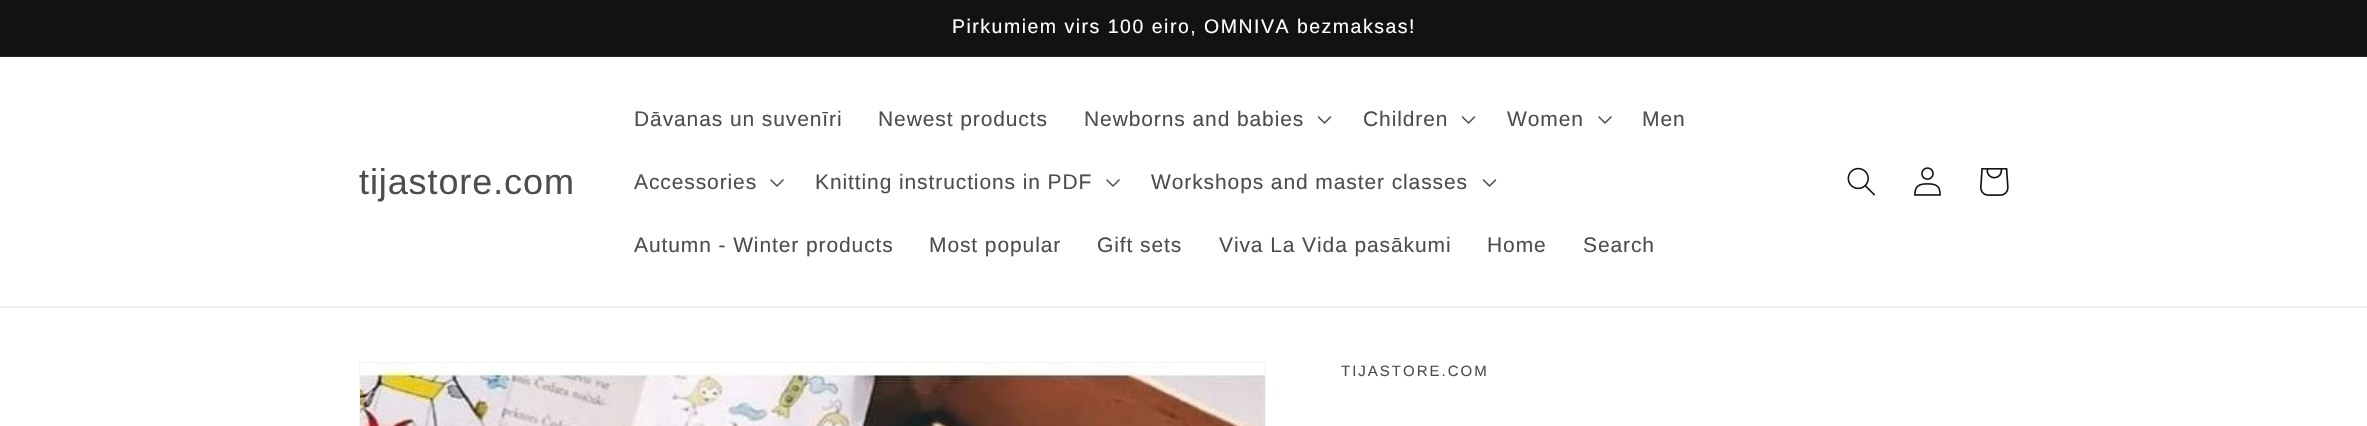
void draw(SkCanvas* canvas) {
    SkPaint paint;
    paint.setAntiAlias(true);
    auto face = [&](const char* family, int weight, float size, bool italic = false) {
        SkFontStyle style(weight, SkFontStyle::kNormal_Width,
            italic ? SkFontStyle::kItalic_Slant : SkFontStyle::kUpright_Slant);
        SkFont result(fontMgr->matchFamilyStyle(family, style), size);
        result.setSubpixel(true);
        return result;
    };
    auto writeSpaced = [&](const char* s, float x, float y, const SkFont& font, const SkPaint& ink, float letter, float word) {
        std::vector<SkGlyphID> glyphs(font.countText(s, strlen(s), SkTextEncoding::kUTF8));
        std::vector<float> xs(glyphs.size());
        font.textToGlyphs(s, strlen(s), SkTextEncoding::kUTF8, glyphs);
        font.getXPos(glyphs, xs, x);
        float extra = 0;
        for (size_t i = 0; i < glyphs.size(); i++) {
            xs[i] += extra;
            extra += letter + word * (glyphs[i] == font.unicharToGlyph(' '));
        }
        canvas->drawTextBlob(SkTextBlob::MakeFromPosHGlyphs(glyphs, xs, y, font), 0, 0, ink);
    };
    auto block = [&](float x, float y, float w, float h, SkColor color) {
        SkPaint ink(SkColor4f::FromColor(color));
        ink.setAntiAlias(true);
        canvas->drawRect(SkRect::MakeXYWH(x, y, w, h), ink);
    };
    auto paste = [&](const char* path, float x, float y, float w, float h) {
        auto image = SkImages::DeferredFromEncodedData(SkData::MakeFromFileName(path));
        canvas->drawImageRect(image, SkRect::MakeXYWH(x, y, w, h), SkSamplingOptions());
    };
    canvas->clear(SK_ColorWHITE);
    block(0, 0, 2367, 56, SkColorSetRGB(18, 18, 18));
    block(0, 56, 2367, 1, SkColorSetRGB(37, 37, 37));
    auto kFont1 = face("Arimo", 400, 19.5f);
    paint.setColor(SK_ColorWHITE);
    writeSpaced("Pirkumiem virs 100 eiro, OMNIVA bezmaksas!", 952, 33, kFont1, paint, 1.5f, 0);
    block(0, 306, 2367, 2, SkColorSetRGB(236, 236, 236));
    auto kFont2 = face("Arimo", 400, 36);
    paint.setColor(SkColorSetRGB(77, 77, 77));
    writeSpaced("tijastore.com", 359, 194, kFont2, paint, 0.9f, 0);
    auto kFont3 = face("Arimo", 400, 21);
    writeSpaced("Dāvanas un suvenīri", 634, 126, kFont3, paint, 0.9f, 0);
    writeSpaced("Newest products", 878, 126, kFont3, paint, 0.9f, 0);
    writeSpaced("Newborns and babies", 1084, 126, kFont3, paint, 0.9f, 0);
    paste("pic1.png", 1317, 116, 15, 8);
    writeSpaced("Children", 1363, 126, kFont3, paint, 0.9f, 0);
    paste("pic1.png", 1461, 116, 15, 8);
    writeSpaced("Women", 1507, 126, kFont3, paint, 0.9f, 0);
    paste("pic2.png", 1598, 116, 14, 8);
    writeSpaced("Men", 1642, 126, kFont3, paint, 0.9f, 0);
    writeSpaced("Accessories", 634, 189, kFont3, paint, 0.9f, 0);
    paste("pic2.png", 770, 179, 14, 8);
    writeSpaced("Knitting instructions in PDF", 815, 189, kFont3, paint, 0.9f, 0);
    paste("pic2.png", 1106, 179, 14, 8);
    writeSpaced("Workshops and master classes", 1151, 189, kFont3, paint, 0.9f, 0);
    paste("pic1.png", 1482, 179, 15, 8);
    writeSpaced("Autumn - Winter products", 634, 252, kFont3, paint, 0.9f, 0);
    writeSpaced("Most popular", 929, 252, kFont3, paint, 0.9f, 0);
    writeSpaced("Gift sets", 1097, 252, kFont3, paint, 0.9f, 0);
    writeSpaced("Viva La Vida pasākumi", 1219, 252, kFont3, paint, 0.9f, 0);
    writeSpaced("Home", 1487, 252, kFont3, paint, 0.9f, 0);
    writeSpaced("Search", 1583, 252, kFont3, paint, 0.9f, 0);
    paste("pic3.png", 1847, 167, 28, 29);
    paste("pic4.png", 1914, 167, 27, 29);
    paste("pic5.png", 1980, 168, 29, 28);
    paint.setStyle(SkPaint::kStroke_Style);
    paint.setStrokeWidth(2);
    paint.setColor(SkColorSetRGB(243, 243, 243));
    canvas->drawRect(SkRect::MakeXYWH(360, 363, 905, 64), paint);
    paste("pic6.png", 360, 363, 905, 63);
    auto kFont4 = face("Arimo", 400, 15);
    paint.setStyle(SkPaint::kFill_Style);
    paint.setColor(SkColorSetRGB(77, 77, 77));
    writeSpaced("TIJASTORE.COM", 1341, 376, kFont4, paint, 2, 0);
}
